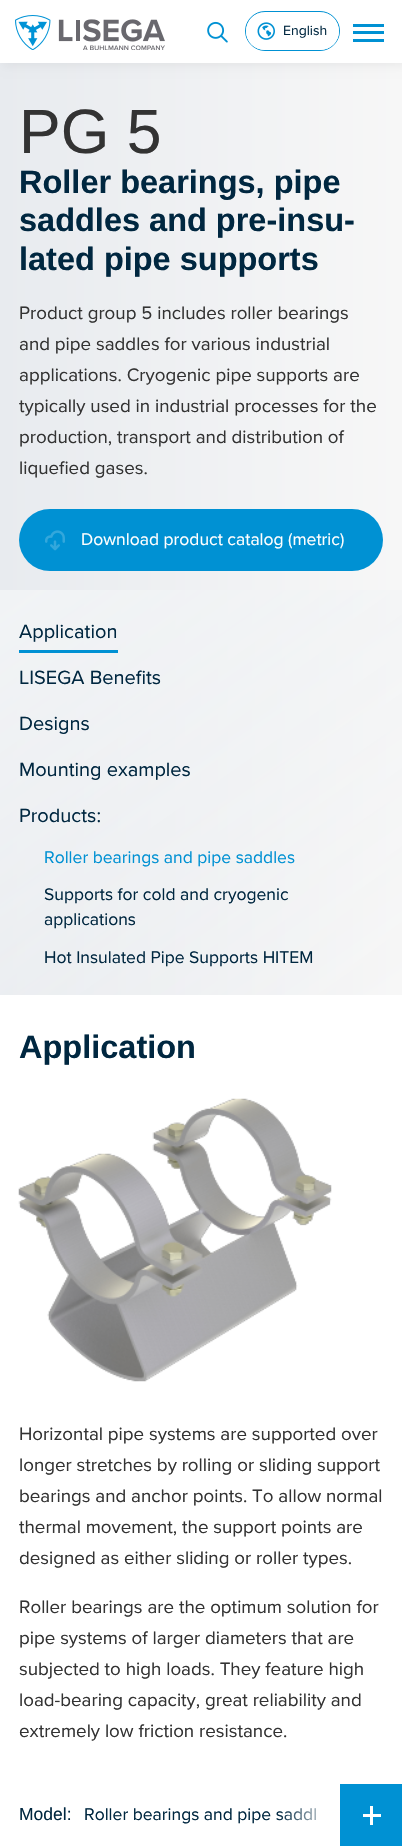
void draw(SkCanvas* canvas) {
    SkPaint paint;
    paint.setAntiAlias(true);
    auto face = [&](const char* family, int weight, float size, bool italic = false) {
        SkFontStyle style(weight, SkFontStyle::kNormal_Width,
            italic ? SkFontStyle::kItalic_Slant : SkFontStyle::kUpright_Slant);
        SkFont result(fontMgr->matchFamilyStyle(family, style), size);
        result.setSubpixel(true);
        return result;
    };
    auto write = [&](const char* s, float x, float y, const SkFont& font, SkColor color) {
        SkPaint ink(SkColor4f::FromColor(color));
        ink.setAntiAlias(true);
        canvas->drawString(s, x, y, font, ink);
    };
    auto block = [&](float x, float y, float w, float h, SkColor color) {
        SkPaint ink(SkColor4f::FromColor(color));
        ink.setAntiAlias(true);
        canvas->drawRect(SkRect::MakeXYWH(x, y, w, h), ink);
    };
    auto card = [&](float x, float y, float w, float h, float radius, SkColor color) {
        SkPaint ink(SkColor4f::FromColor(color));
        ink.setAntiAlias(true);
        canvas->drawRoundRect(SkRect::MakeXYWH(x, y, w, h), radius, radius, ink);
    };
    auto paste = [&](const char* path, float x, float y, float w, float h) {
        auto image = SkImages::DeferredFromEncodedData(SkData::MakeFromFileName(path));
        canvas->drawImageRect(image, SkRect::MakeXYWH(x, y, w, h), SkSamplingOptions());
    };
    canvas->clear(SK_ColorWHITE);
    {
        const SkColor colors[] = {SkColorSetRGB(232, 235, 239), SkColorSetRGB(247, 247, 247)};
        const float stops[] = {0, 1};
        const SkPoint ends[] = {{0, 529}, {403, 529}};
        paint.setShader(SkGradientShader::MakeLinear(ends, colors, stops, 2, SkTileMode::kClamp));
        paint.setAlpha(255);
    }
    canvas->drawRect(SkRect::MakeXYWH(0, 63, 402, 932), paint);
    paint.setShader(nullptr);
    paint.setColor(SkColorSetARGB(13, 0, 0, 0));
    paint.setMaskFilter(SkMaskFilter::MakeBlur(kNormal_SkBlurStyle, 4.5f));
    canvas->drawRect(SkRect::MakeXYWH(3, 4, 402, 62), paint);
    paint.setMaskFilter(nullptr);
    block(0, 0, 402, 63, SK_ColorWHITE);
    paste("pic1.png", 15, 15, 150, 35);
    paste("pic2.png", 207, 21, 21, 22);
    paint.setStyle(SkPaint::kStroke_Style);
    paint.setStrokeWidth(1);
    paint.setColor(SkColorSetRGB(0, 145, 211));
    canvas->drawRoundRect(SkRect::MakeXYWH(245.5f, 11.5f, 94, 39), 19.5f, 19.5f, paint);
    card(246, 13, 93, 37, 18.5f, SK_ColorWHITE);
    paste("pic3.png", 257, 22, 18, 18);
    auto kFont1 = face("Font", 400, 14);
    write("English", 283, 35, kFont1, SkColorSetRGB(0, 39, 64));
    block(353, 24, 31, 3, SkColorSetRGB(0, 145, 211));
    block(353, 31, 31, 3, SkColorSetRGB(0, 145, 211));
    block(353, 39, 31, 3, SkColorSetRGB(0, 145, 211));
    auto kFont2 = face("Liberation Sans", 400, 62.5f);
    write("PG 5", 19, 153, kFont2, SkColorSetRGB(51, 51, 51));
    auto kFont3 = face("Liberation Sans", 700, 32.5f);
    write("Roller bearings, pipe", 19, 193, kFont3, SkColorSetRGB(0, 39, 64));
    write("saddles and pre-insu-", 19, 231, kFont3, SkColorSetRGB(0, 39, 64));
    write("lated pipe supports", 19, 270, kFont3, SkColorSetRGB(0, 39, 64));
    auto kFont4 = face("Font", 400, 18.75f);
    write("Product group 5 includes roller bearings", 19, 319, kFont4, SkColorSetRGB(51, 51, 51));
    write("and pipe saddles for various industrial", 19, 350, kFont4, SkColorSetRGB(51, 51, 51));
    write("applications. Cryogenic pipe supports are", 19, 381, kFont4, SkColorSetRGB(51, 51, 51));
    write("typically used in industrial processes for the", 19, 412, kFont4, SkColorSetRGB(51, 51, 51));
    write("production, transport and distribution of", 19, 443, kFont4, SkColorSetRGB(51, 51, 51));
    write("liquefied gases.", 19, 474, kFont4, SkColorSetRGB(51, 51, 51));
    card(19, 509, 364, 62, 31, SkColorSetRGB(0, 145, 211));
    paste("pic4.png", 45, 530, 20, 21);
    auto kFont5 = face("Font", 400, 17.5f);
    write("Download product catalog (metric)", 81, 545, kFont5, SK_ColorWHITE);
    paint.setStyle(SkPaint::kFill_Style);
    {
        const SkColor colors[] = {SkColorSetRGB(241, 243, 245), SkColorSetARGB(0, 241, 243, 245)};
        const float stops[] = {0, 1};
        const SkPoint ends[] = {{40, 562}, {363, 1023}};
        paint.setShader(SkGradientShader::MakeLinear(ends, colors, stops, 2, SkTileMode::kClamp));
        paint.setAlpha(255);
    }
    canvas->drawRect(SkRect::MakeXYWH(0, 590, 402, 405), paint);
    auto kFont6 = face("Font", 400, 20);
    write("Application", 19, 638, kFont6, SkColorSetRGB(0, 39, 64));
    block(19, 650, 99, 3, SkColorSetRGB(0, 145, 211));
    write("LISEGA Benefits", 19, 684, kFont6, SkColorSetRGB(0, 39, 64));
    write("Designs", 19, 730, kFont6, SkColorSetRGB(0, 39, 64));
    write("Mounting examples", 19, 776, kFont6, SkColorSetRGB(0, 39, 64));
    write("Products:", 19, 822, kFont6, SkColorSetRGB(0, 39, 64));
    write("Roller bearings and pipe saddles", 44, 863, kFont5, SkColorSetRGB(0, 145, 211));
    write("Supports for cold and cryogenic", 44, 900, kFont5, SkColorSetRGB(0, 39, 64));
    write("applications", 44, 925, kFont5, SkColorSetRGB(0, 39, 64));
    write("Hot Insulated Pipe Supports HITEM", 44, 963, kFont5, SkColorSetRGB(0, 39, 64));
    write("Application", 19, 1058, kFont3, SkColorSetRGB(0, 39, 64));
    paste("pic5.png", 18, 1098, 314, 284);
    write("Horizontal pipe systems are supported over", 19, 1440, kFont4, SkColorSetRGB(51, 51, 51));
    write("longer stretches by rolling or sliding support", 19, 1471, kFont4, SkColorSetRGB(51, 51, 51));
    write("bearings and anchor points. To allow normal", 19, 1502, kFont4, SkColorSetRGB(51, 51, 51));
    write("thermal movement, the support points are", 19, 1533, kFont4, SkColorSetRGB(51, 51, 51));
    write("designed as either sliding or roller types.", 19, 1564, kFont4, SkColorSetRGB(51, 51, 51));
    write("Roller bearings are the optimum solution for", 19, 1613, kFont4, SkColorSetRGB(51, 51, 51));
    write("pipe systems of larger diameters that are", 19, 1644, kFont4, SkColorSetRGB(51, 51, 51));
    write("subjected to high loads. They feature high", 19, 1675, kFont4, SkColorSetRGB(51, 51, 51));
    write("load-bearing capacity, great reliability and", 19, 1706, kFont4, SkColorSetRGB(51, 51, 51));
    write("extremely low friction resistance.", 19, 1737, kFont4, SkColorSetRGB(51, 51, 51));
    auto kFont7 = face("Liberation Sans", 400, 17.5f);
    write("Model:", 19, 1820, kFont7, SkColorSetRGB(0, 39, 64));
    write("Roller bearings and pipe saddl", 84, 1820, kFont5, SkColorSetRGB(0, 39, 64));
    {
        const SkColor colors[] = {SkColorSetARGB(0, 255, 255, 255), SK_ColorWHITE};
        const float stops[] = {0, 1};
        const SkPoint ends[] = {{278, 1815}, {340, 1815}};
        paint.setShader(SkGradientShader::MakeLinear(ends, colors, stops, 2, SkTileMode::kClamp));
        paint.setAlpha(255);
    }
    canvas->drawRect(SkRect::MakeXYWH(279, 1808, 37, 13), paint);
    block(340, 1784, 62, 62, SkColorSetRGB(0, 145, 211));
    block(363, 1814, 18, 3, SK_ColorWHITE);
    block(370, 1806, 3, 19, SK_ColorWHITE);
}
